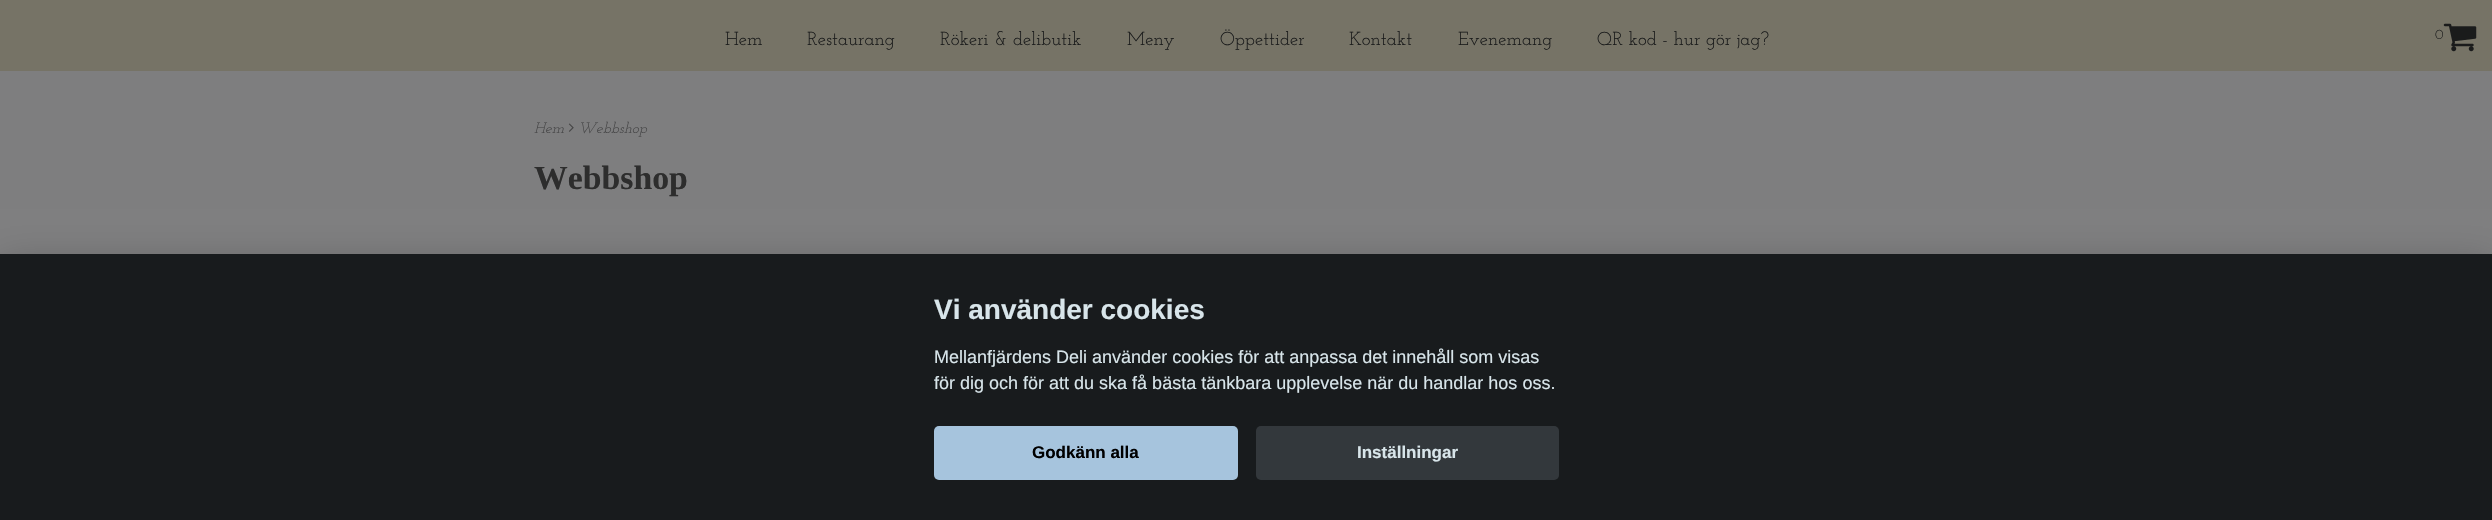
void draw(SkCanvas* canvas) {
    SkPaint paint;
    paint.setAntiAlias(true);
    auto face = [&](const char* family, int weight, float size, bool italic = false) {
        SkFontStyle style(weight, SkFontStyle::kNormal_Width,
            italic ? SkFontStyle::kItalic_Slant : SkFontStyle::kUpright_Slant);
        SkFont result(fontMgr->matchFamilyStyle(family, style), size);
        result.setSubpixel(true);
        return result;
    };
    auto write = [&](const char* s, float x, float y, const SkFont& font, SkColor color) {
        SkPaint ink(SkColor4f::FromColor(color));
        ink.setAntiAlias(true);
        canvas->drawString(s, x, y, font, ink);
    };
    auto block = [&](float x, float y, float w, float h, SkColor color) {
        SkPaint ink(SkColor4f::FromColor(color));
        ink.setAntiAlias(true);
        canvas->drawRect(SkRect::MakeXYWH(x, y, w, h), ink);
    };
    auto card = [&](float x, float y, float w, float h, float radius, SkColor color) {
        SkPaint ink(SkColor4f::FromColor(color));
        ink.setAntiAlias(true);
        canvas->drawRoundRect(SkRect::MakeXYWH(x, y, w, h), radius, radius, ink);
    };
    auto paste = [&](const char* path, float x, float y, float w, float h) {
        auto image = SkImages::DeferredFromEncodedData(SkData::MakeFromFileName(path));
        canvas->drawImageRect(image, SkRect::MakeXYWH(x, y, w, h), SkSamplingOptions());
    };
    canvas->clear(SkColorSetRGB(126, 126, 127));
    block(0, 0, 2492, 71, SkColorSetRGB(118, 115, 102));
    auto kFont1 = face("Josefin Slab", 400, 18.75f);
    write("Hem", 725, 45, kFont1, SkColorSetRGB(26, 27, 27));
    write("Restaurang", 807, 45, kFont1, SkColorSetRGB(26, 27, 27));
    write("Rökeri & delibutik", 940, 45, kFont1, SkColorSetRGB(26, 27, 27));
    write("Meny", 1127, 45, kFont1, SkColorSetRGB(26, 27, 27));
    write("Öppettider", 1220, 45, kFont1, SkColorSetRGB(26, 27, 27));
    write("Kontakt", 1349, 45, kFont1, SkColorSetRGB(26, 27, 27));
    write("Evenemang", 1458, 45, kFont1, SkColorSetRGB(26, 27, 27));
    write("QR kod - hur gör jag?", 1597, 45, kFont1, SkColorSetRGB(26, 27, 27));
    auto kFont2 = face("Josefin Slab", 400, 14);
    write("0", 2435, 39, kFont2, SkColorSetRGB(26, 27, 27));
    paste("pic1.png", 2443, 23, 34, 29);
    auto kFont3 = face("Josefin Slab", 400, 15, true);
    write("Hem", 534, 133, kFont3, SkColorSetRGB(69, 69, 70));
    paste("pic2.png", 568, 123, 6, 9);
    write("Webbshop", 578, 133, kFont3, SkColorSetRGB(69, 69, 70));
    auto kFont4 = face("Liberation Serif", 700, 33.75f);
    write("Webbshop", 534, 189, kFont4, SkColorSetRGB(45, 45, 45));
    paint.setColor(SkColorSetARGB(71, 2, 2, 3));
    paint.setMaskFilter(SkMaskFilter::MakeBlur(kNormal_SkBlurStyle, 19));
    canvas->drawRect(SkRect::MakeXYWH(0, 266, 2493, 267), paint);
    paint.setMaskFilter(nullptr);
    block(0, 254, 2492, 266, SkColorSetRGB(24, 27, 29));
    auto kFont5 = face("Liberation Sans", 700, 28);
    write("Vi använder cookies", 934, 319, kFont5, SkColorSetRGB(216, 229, 234));
    auto kFont6 = face("Liberation Sans", 400, 18);
    write("Mellanfjärdens Deli använder cookies för att anpassa det innehåll som visas", 934, 363, kFont6, SkColorSetRGB(216, 229, 234));
    write("för dig och för att du ska få bästa tänkbara upplevelse när du handlar hos oss.", 934, 389, kFont6, SkColorSetRGB(216, 229, 234));
    card(934, 426, 304, 54, 5, SkColorSetRGB(166, 196, 221));
    auto kFont7 = face("Liberation Sans", 700, 17);
    write("Godkänn alla", 1032, 458, kFont7, SK_ColorBLACK);
    card(1256, 426, 303, 54, 5, SkColorSetRGB(51, 56, 60));
    write("Inställningar", 1357, 458, kFont7, SkColorSetRGB(216, 229, 234));
}
